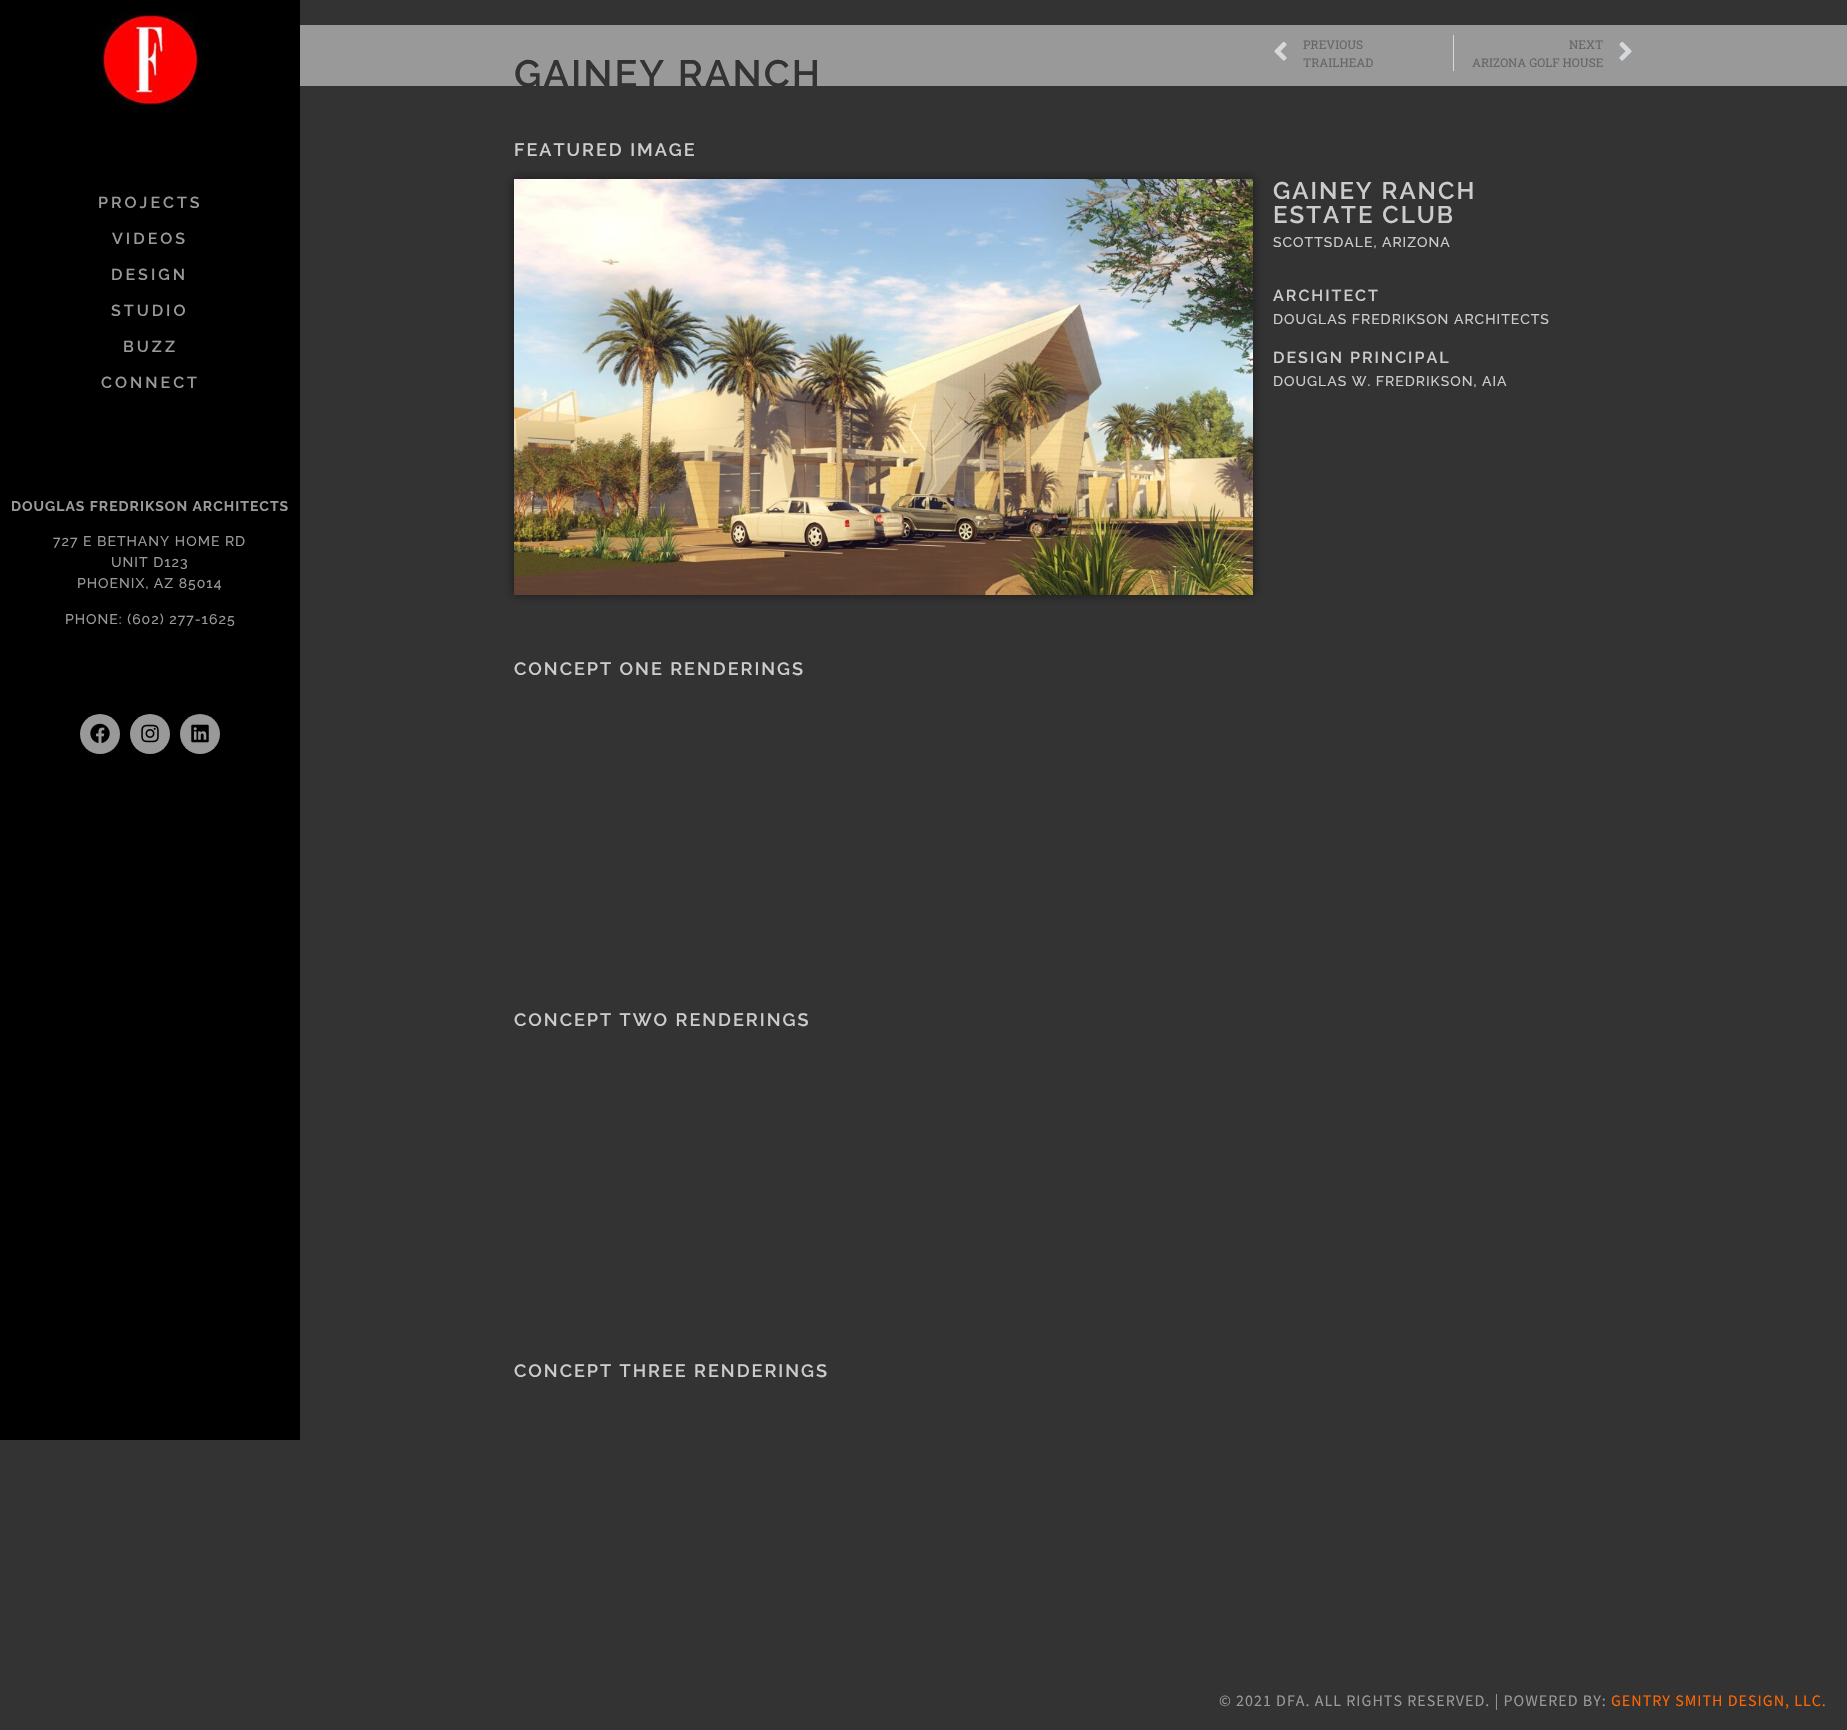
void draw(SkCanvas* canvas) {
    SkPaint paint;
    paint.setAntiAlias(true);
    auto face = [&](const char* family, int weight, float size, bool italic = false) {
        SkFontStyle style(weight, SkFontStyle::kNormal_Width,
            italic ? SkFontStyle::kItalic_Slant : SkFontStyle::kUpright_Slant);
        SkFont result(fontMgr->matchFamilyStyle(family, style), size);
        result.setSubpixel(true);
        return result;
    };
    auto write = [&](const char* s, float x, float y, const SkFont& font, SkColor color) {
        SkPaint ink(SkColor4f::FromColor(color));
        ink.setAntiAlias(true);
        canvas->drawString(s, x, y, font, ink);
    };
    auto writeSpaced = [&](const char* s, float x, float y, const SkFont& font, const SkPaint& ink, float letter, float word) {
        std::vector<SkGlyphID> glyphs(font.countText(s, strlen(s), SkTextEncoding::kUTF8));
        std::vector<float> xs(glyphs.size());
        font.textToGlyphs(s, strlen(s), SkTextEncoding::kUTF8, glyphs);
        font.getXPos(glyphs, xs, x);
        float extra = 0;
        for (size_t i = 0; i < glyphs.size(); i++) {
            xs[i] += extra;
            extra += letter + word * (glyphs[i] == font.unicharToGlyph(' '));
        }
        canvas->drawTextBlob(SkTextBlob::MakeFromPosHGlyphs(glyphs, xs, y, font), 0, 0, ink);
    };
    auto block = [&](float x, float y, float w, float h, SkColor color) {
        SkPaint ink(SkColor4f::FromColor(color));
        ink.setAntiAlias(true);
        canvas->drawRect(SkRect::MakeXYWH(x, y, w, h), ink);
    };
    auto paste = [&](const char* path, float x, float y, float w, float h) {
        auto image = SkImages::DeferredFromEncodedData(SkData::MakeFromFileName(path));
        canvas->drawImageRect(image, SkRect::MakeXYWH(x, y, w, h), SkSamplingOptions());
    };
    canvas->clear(SkColorSetRGB(51, 51, 51));
    block(0, 0, 300, 1440, SK_ColorBLACK);
    paste("pic1.png", 98, 10, 104, 96);
    auto kFont1 = face("Raleway", 600, 16);
    paint.setColor(SkColorSetRGB(153, 153, 153));
    writeSpaced("PROJECTS", 98, 208, kFont1, paint, 3, 0);
    writeSpaced("VIDEOS", 112, 244, kFont1, paint, 3, 0);
    writeSpaced("DESIGN", 111, 280, kFont1, paint, 3, 0);
    writeSpaced("STUDIO", 111, 316, kFont1, paint, 3, 0);
    writeSpaced("BUZZ", 123, 352, kFont1, paint, 3, 0);
    writeSpaced("CONNECT", 101, 388, kFont1, paint, 3, 0);
    auto kFont2 = face("Raleway", 700, 14);
    writeSpaced("DOUGLAS FREDRIKSON ARCHITECTS", 11, 511, kFont2, paint, 1, 0);
    auto kFont3 = face("Raleway", 500, 14);
    writeSpaced("727 E BETHANY HOME RD", 53, 546, kFont3, paint, 1, 0);
    writeSpaced("UNIT D123", 111, 567, kFont3, paint, 1, 0);
    writeSpaced("PHOENIX, AZ 85014", 77, 588, kFont3, paint, 1, 0);
    writeSpaced("PHONE: (602) 277-1625", 65, 624, kFont3, paint, 1, 0);
    canvas->drawCircle(100, 734, 20, paint);
    paste("pic2.png", 90, 723, 20, 20);
    canvas->drawCircle(150, 734, 20, paint);
    paste("pic3.png", 141, 724, 18, 19);
    canvas->drawCircle(200, 734, 20, paint);
    paste("pic4.png", 191, 724, 18, 19);
    block(300, 25, 1547, 61, SkColorSetRGB(153, 153, 153));
    paste("pic5.png", 1274, 41, 13, 20);
    auto kFont4 = face("Roboto Slab", 400, 12);
    write("PREVIOUS", 1303, 49, kFont4, SkColorSetRGB(102, 102, 102));
    write("TRAILHEAD", 1303, 67, kFont4, SkColorSetRGB(102, 102, 102));
    block(1453, 35, 1, 36, SkColorSetRGB(213, 216, 220));
    write("NEXT", 1569, 49, kFont4, SkColorSetRGB(102, 102, 102));
    write("ARIZONA GOLF HOUSE", 1472, 67, kFont4, SkColorSetRGB(102, 102, 102));
    paste("pic6.png", 1619, 41, 13, 20);
    auto kFont5 = face("Raleway", 600, 38);
    paint.setColor(SkColorSetRGB(51, 51, 51));
    writeSpaced("GAINEY RANCH", 514, 87, kFont5, paint, 2, 0);
    auto kFont6 = face("Raleway", 600, 18);
    paint.setColor(SkColorSetRGB(204, 204, 204));
    writeSpaced("FEATURED IMAGE", 514, 156, kFont6, paint, 2, 0);
    paint.setColor(SkColorSetARGB(128, 0, 0, 0));
    paint.setMaskFilter(SkMaskFilter::MakeBlur(kNormal_SkBlurStyle, 5));
    canvas->drawRect(SkRect::MakeXYWH(514, 179, 739, 416), paint);
    paint.setMaskFilter(nullptr);
    paste("pic7.png", 514, 179, 739, 416);
    auto kFont7 = face("Raleway", 600, 24);
    paint.setColor(SkColorSetRGB(204, 204, 204));
    writeSpaced("GAINEY RANCH", 1273, 199, kFont7, paint, 2, 0);
    writeSpaced("ESTATE CLUB", 1273, 223, kFont7, paint, 2, 0);
    writeSpaced("SCOTTSDALE, ARIZONA", 1273, 247, kFont3, paint, 1, 0);
    writeSpaced("ARCHITECT", 1273, 301, kFont1, paint, 2, 0);
    writeSpaced("DOUGLAS FREDRIKSON ARCHITECTS", 1273, 324, kFont3, paint, 1, 0);
    writeSpaced("DESIGN PRINCIPAL", 1273, 363, kFont1, paint, 2, 0);
    writeSpaced("DOUGLAS W. FREDRIKSON, AIA", 1273, 386, kFont3, paint, 1, 0);
    writeSpaced("CONCEPT ONE RENDERINGS", 514, 675, kFont6, paint, 2, 0);
    writeSpaced("CONCEPT TWO RENDERINGS", 514, 1026, kFont6, paint, 2, 0);
    writeSpaced("CONCEPT THREE RENDERINGS", 514, 1377, kFont6, paint, 2, 0);
    auto kFont8 = face("Source Sans Pro", 400, 16);
    paint.setColor(SkColorSetRGB(153, 153, 153));
    writeSpaced("© 2021 DFA. ALL RIGHTS RESERVED. | POWERED BY:", 1219, 1706, kFont8, paint, 1, 0);
    paint.setColor(SkColorSetRGB(255, 102, 0));
    writeSpaced("GENTRY SMITH DESIGN, LLC.", 1611, 1706, kFont8, paint, 1, 0);
}
